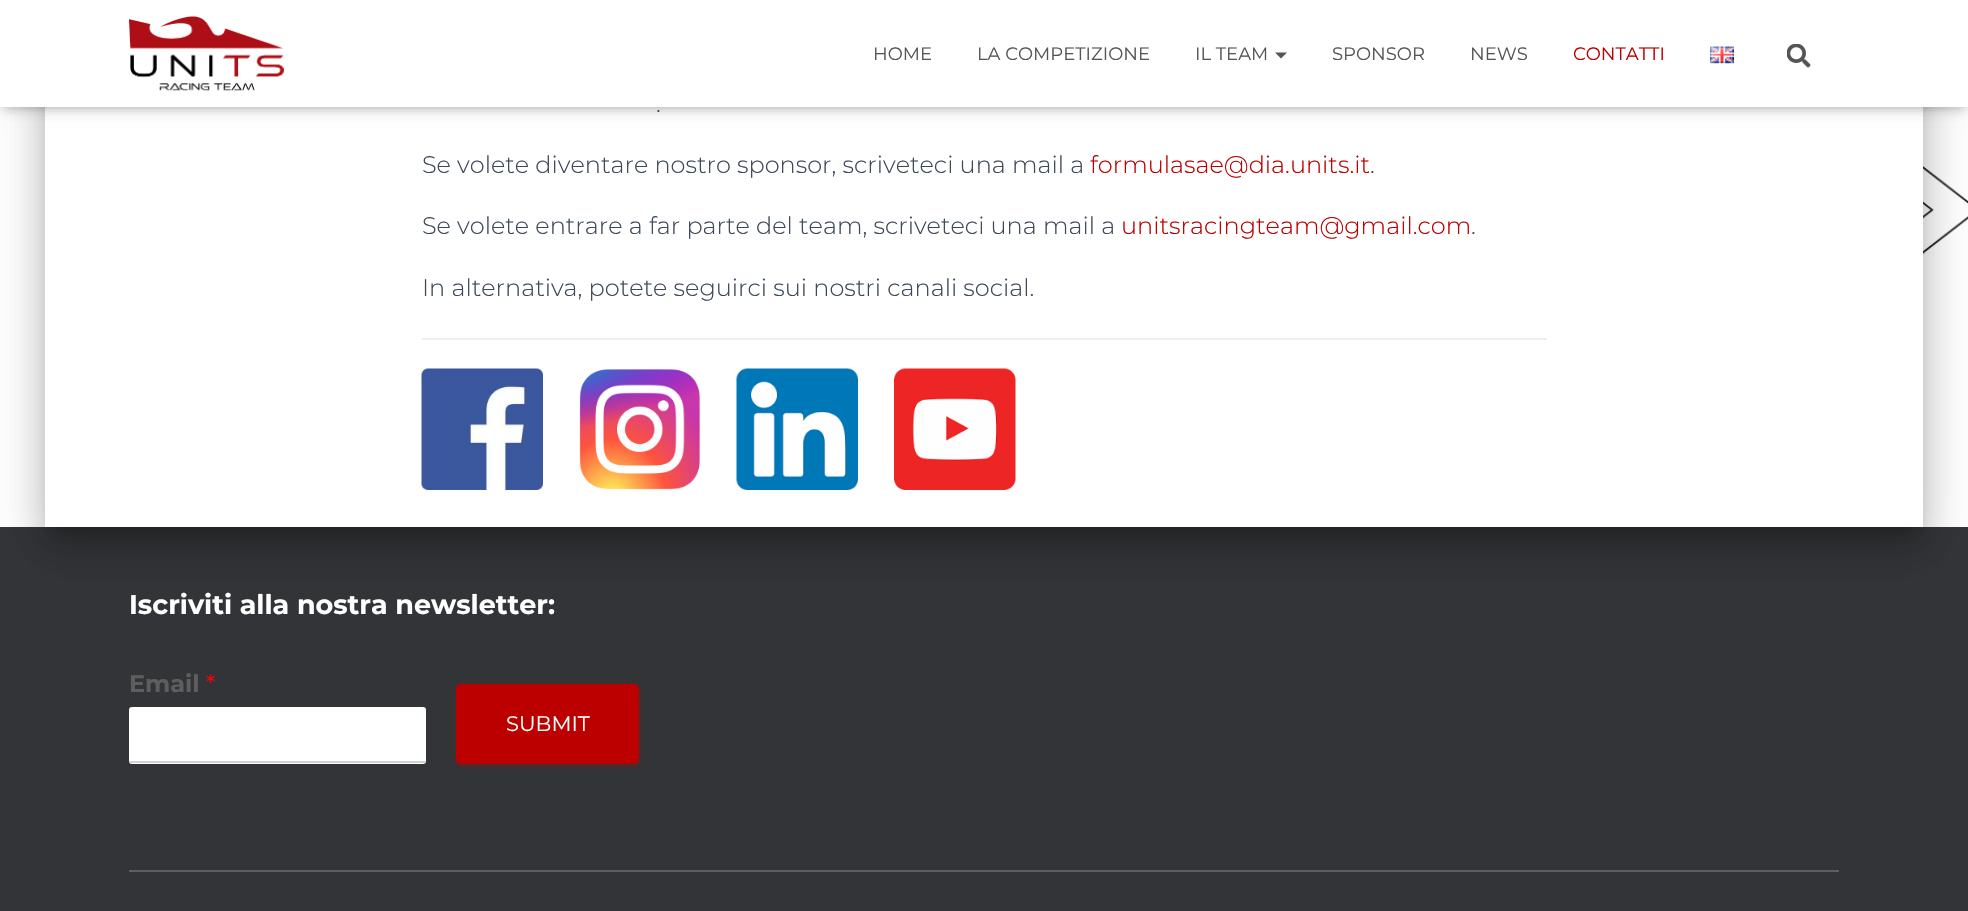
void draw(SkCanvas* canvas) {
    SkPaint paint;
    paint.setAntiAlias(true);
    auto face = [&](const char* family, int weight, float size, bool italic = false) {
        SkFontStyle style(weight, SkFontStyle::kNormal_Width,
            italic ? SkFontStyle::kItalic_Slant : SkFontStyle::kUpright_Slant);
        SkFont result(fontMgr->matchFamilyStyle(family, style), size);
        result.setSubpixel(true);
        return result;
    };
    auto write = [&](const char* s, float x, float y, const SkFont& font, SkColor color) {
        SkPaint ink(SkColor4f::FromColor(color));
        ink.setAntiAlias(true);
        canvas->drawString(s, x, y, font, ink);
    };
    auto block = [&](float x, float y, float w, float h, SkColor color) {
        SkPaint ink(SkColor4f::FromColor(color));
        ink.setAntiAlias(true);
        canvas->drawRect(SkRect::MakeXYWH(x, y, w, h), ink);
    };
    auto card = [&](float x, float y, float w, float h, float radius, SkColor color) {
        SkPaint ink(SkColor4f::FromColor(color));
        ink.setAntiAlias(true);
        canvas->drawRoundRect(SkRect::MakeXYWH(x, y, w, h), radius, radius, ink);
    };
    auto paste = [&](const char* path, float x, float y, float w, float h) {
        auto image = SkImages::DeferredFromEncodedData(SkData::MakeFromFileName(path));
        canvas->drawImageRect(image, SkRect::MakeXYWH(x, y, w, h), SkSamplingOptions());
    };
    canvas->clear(SK_ColorWHITE);
    paste("pic1.png", 0, 107, 1968, 420);
    block(0, 527, 1968, 384, SkColorSetRGB(50, 52, 55));
    paint.setColor(SkColorSetARGB(51, 0, 0, 0));
    paint.setMaskFilter(SkMaskFilter::MakeBlur(kNormal_SkBlurStyle, 7.5f));
    canvas->drawRoundRect(SkRect::MakeXYWH(53, -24, 1863, 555), 1.5f, 1.5f, paint);
    paint.setMaskFilter(nullptr);
    paint.setColor(SkColorSetARGB(31, 0, 0, 0));
    paint.setMaskFilter(SkMaskFilter::MakeBlur(kNormal_SkBlurStyle, 22.5f));
    canvas->drawRoundRect(SkRect::MakeXYWH(38, -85, 1893, 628), 17, 17, paint);
    paint.setMaskFilter(nullptr);
    paint.setColor(SkColorSetARGB(36, 0, 0, 0));
    paint.setMaskFilter(SkMaskFilter::MakeBlur(kNormal_SkBlurStyle, 18));
    canvas->drawRoundRect(SkRect::MakeXYWH(42, -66, 1884, 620), 12, 12, paint);
    paint.setMaskFilter(nullptr);
    block(45, 107, 1878, 420, SK_ColorWHITE);
    paint.setColor(SkColorSetARGB(26, 0, 0, 0));
    paint.setMaskFilter(SkMaskFilter::MakeBlur(kNormal_SkBlurStyle, 4));
    canvas->drawRect(SkRect::MakeXYWH(3, 9, 1962, 101), paint);
    paint.setMaskFilter(nullptr);
    paint.setColor(SkColorSetARGB(31, 0, 0, 0));
    paint.setMaskFilter(SkMaskFilter::MakeBlur(kNormal_SkBlurStyle, 7.5f));
    canvas->drawRect(SkRect::MakeXYWH(0, 2, 1968, 106), paint);
    paint.setMaskFilter(nullptr);
    paint.setColor(SkColorSetARGB(107, 0, 0, 0));
    paint.setMaskFilter(SkMaskFilter::MakeBlur(kNormal_SkBlurStyle, 7.5f));
    canvas->drawRect(SkRect::MakeXYWH(9, 11, 1950, 88), paint);
    paint.setMaskFilter(nullptr);
    block(0, 0, 1968, 107, SK_ColorWHITE);
    paste("pic2.png", 129, 16, 155, 75);
    auto kFont1 = face("Montserrat", 400, 18);
    write("HOME", 873, 60, kFont1, SkColorSetRGB(85, 85, 85));
    write("LA COMPETIZIONE", 977, 60, kFont1, SkColorSetRGB(85, 85, 85));
    write("IL TEAM", 1195, 60, kFont1, SkColorSetRGB(85, 85, 85));
    paint.setColor(SkColorSetRGB(85, 85, 85));
    canvas->drawPath(SkPathBuilder().moveTo(1275, 52.5f).lineTo(1287, 52.5f).lineTo(1281, 58.5f).close().detach(), paint);
    write("SPONSOR", 1332, 60, kFont1, SkColorSetRGB(85, 85, 85));
    write("NEWS", 1470, 60, kFont1, SkColorSetRGB(85, 85, 85));
    write("CONTATTI", 1573, 60, kFont1, SkColorSetRGB(188, 0, 0));
    paste("pic3.png", 1710, 46, 24, 18);
    paste("pic4.png", 1787, 44, 24, 24);
    auto kFont2 = face("Montserrat", 300, 24);
    write(".", 656, 112, kFont2, SkColorSetRGB(60, 72, 88));
    write("Se volete diventare nostro sponsor, scriveteci una mail a", 422, 173, kFont2, SkColorSetRGB(60, 72, 88));
    write("formulasae@dia.units.it", 1090, 173, kFont2, SkColorSetRGB(188, 0, 0));
    write(".", 1370, 173, kFont2, SkColorSetRGB(60, 72, 88));
    write("Se volete entrare a far parte del team, scriveteci una mail a", 422, 234, kFont2, SkColorSetRGB(60, 72, 88));
    write("unitsracingteam@gmail.com", 1121, 234, kFont2, SkColorSetRGB(188, 0, 0));
    write(".", 1471, 234, kFont2, SkColorSetRGB(60, 72, 88));
    write("In alternativa, potete seguirci sui nostri canali social.", 422, 296, kFont2, SkColorSetRGB(60, 72, 88));
    block(422, 338, 1125, 2, SkColorSetRGB(238, 238, 238));
    paste("pic5.png", 421, 368, 122, 122);
    paste("pic6.png", 579, 369, 121, 121);
    paste("pic7.png", 736, 368, 122, 122);
    paste("pic8.png", 894, 368, 122, 122);
    auto kFont3 = face("Montserrat", 700, 27);
    write("Iscriviti alla nostra newsletter:", 129, 614, kFont3, SK_ColorWHITE);
    auto kFont4 = face("Montserrat", 700, 24);
    write("Email", 129, 692, kFont4, SkColorSetRGB(94, 94, 94));
    auto kFont5 = face("Montserrat", 400, 24);
    write("*", 206, 692, kFont5, SkColorSetRGB(255, 0, 0));
    card(129, 707, 297, 57, 3, SK_ColorWHITE);
    canvas->save();
    canvas->clipPath(SkPathBuilder().moveTo(132, 707).lineTo(423, 707).cubicTo(424.5f, 707, 426, 708.5f, 426, 710).lineTo(426, 761).cubicTo(426, 762.5f, 424.5f, 764, 423, 764).lineTo(132, 764).cubicTo(130.5f, 764, 129, 762.5f, 129, 761).lineTo(129, 710).cubicTo(129, 708.5f, 130.5f, 707, 132, 707).close().detach(), true);
    block(129, 761, 297, 2, SkColorSetRGB(210, 210, 210));
    canvas->restore();
    paint.setColor(SkColorSetARGB(31, 188, 0, 0));
    paint.setMaskFilter(SkMaskFilter::MakeBlur(kNormal_SkBlurStyle, 4));
    canvas->drawRoundRect(SkRect::MakeXYWH(456, 686, 183, 79), 5, 5, paint);
    paint.setMaskFilter(nullptr);
    paint.setColor(SkColorSetARGB(51, 188, 0, 0));
    paint.setMaskFilter(SkMaskFilter::MakeBlur(kNormal_SkBlurStyle, 1));
    canvas->drawRoundRect(SkRect::MakeXYWH(459, 692, 177, 73), 1.5f, 1.5f, paint);
    paint.setMaskFilter(nullptr);
    paint.setColor(SkColorSetARGB(36, 188, 0, 0));
    paint.setMaskFilter(SkMaskFilter::MakeBlur(kNormal_SkBlurStyle, 1.5f));
    canvas->drawRoundRect(SkRect::MakeXYWH(456, 687, 183, 80), 5, 5, paint);
    paint.setMaskFilter(nullptr);
    card(456, 684, 183, 80, 5, SkColorSetRGB(188, 0, 0));
    auto kFont6 = face("Montserrat", 400, 21);
    write("SUBMIT", 506, 731, kFont6, SK_ColorWHITE);
    block(129, 870, 1710, 2, SkColorSetRGB(94, 94, 94));
}
